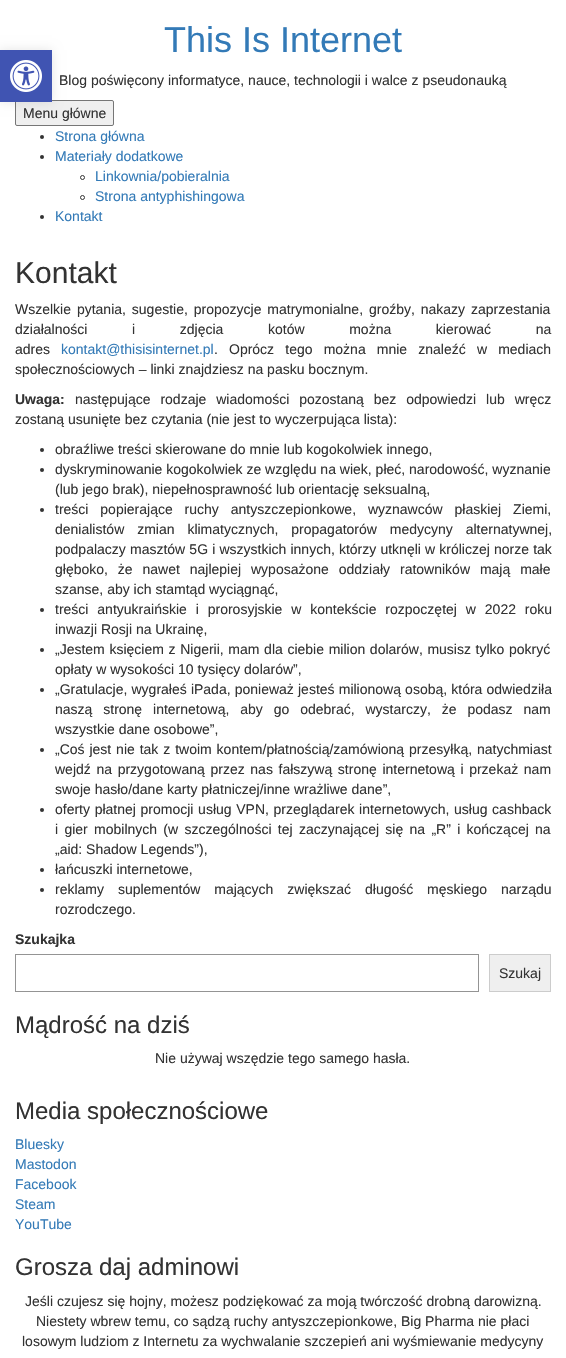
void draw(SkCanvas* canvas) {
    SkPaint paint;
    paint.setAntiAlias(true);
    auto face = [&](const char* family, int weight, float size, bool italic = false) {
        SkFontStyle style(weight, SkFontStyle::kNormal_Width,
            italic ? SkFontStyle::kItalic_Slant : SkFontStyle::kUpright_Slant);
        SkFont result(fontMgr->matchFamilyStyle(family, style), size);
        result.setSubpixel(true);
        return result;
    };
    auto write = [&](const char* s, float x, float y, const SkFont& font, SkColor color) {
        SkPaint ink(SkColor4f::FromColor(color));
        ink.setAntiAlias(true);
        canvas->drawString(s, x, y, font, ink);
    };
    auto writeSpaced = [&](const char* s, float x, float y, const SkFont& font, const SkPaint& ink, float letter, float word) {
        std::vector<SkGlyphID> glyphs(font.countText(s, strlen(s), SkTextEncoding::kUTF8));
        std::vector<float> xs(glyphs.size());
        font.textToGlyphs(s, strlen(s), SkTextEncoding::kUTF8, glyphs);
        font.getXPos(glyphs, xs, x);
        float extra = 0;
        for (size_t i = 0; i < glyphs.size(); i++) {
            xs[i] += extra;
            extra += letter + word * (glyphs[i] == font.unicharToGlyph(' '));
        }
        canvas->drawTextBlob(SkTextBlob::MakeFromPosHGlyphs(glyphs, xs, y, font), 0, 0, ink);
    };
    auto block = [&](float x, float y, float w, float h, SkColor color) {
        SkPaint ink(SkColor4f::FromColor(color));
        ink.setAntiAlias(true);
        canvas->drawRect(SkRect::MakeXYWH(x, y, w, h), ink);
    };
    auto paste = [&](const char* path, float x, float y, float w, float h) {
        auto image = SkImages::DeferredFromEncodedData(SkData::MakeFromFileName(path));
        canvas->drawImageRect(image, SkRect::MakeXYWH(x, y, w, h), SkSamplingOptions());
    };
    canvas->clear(SK_ColorWHITE);
    auto kFont1 = face("Liberation Sans", 400, 36);
    write("This Is Internet", 164, 52, kFont1, SkColorSetRGB(51, 122, 183));
    auto kFont2 = face("Liberation Sans", 400, 14);
    write("Blog poświęcony informatyce, nauce, technologii i walce z pseudonauką", 59, 85, kFont2, SkColorSetRGB(51, 51, 51));
    paint.setColor(SkColorSetRGB(239, 239, 239));
    canvas->drawRoundRect(SkRect::MakeXYWH(15.5f, 100.5f, 98, 25), 1.5f, 1.5f, paint);
    paint.setStyle(SkPaint::kStroke_Style);
    paint.setStrokeWidth(1);
    paint.setColor(SkColorSetRGB(118, 118, 118));
    canvas->drawRoundRect(SkRect::MakeXYWH(15.5f, 100.5f, 98, 25), 1.5f, 1.5f, paint);
    write("Menu główne", 23, 118, kFont2, SkColorSetRGB(51, 51, 51));
    paint.setStyle(SkPaint::kFill_Style);
    paint.setColor(SkColorSetRGB(51, 51, 51));
    canvas->drawCircle(42, 137, 2, paint);
    write("Strona główna", 55, 141, kFont2, SkColorSetRGB(51, 122, 183));
    canvas->drawCircle(42, 157, 2, paint);
    write("Materiały dodatkowe", 55, 161, kFont2, SkColorSetRGB(51, 122, 183));
    paint.setStyle(SkPaint::kStroke_Style);
    canvas->drawCircle(82.5f, 177.5f, 2, paint);
    write("Linkownia/pobieralnia", 95, 181, kFont2, SkColorSetRGB(51, 122, 183));
    canvas->drawCircle(82.5f, 197.5f, 2, paint);
    write("Strona antyphishingowa", 95, 201, kFont2, SkColorSetRGB(51, 122, 183));
    paint.setStyle(SkPaint::kFill_Style);
    canvas->drawCircle(42, 217, 2, paint);
    write("Kontakt", 55, 221, kFont2, SkColorSetRGB(51, 122, 183));
    auto kFont3 = face("Liberation Sans", 400, 30);
    write("Kontakt", 15, 283, kFont3, SkColorSetRGB(51, 51, 51));
    writeSpaced("Wszelkie pytania, sugestie, propozycje matrymonialne, groźby, nakazy zaprzestania", 15, 314, kFont2, paint, 0, 2);
    writeSpaced("działalności i zdjęcia kotów można kierować na", 15, 334, kFont2, paint, 0, 40.75f);
    write("adres", 15, 354, kFont2, SkColorSetRGB(51, 51, 51));
    write("kontakt@thisisinternet.pl", 61, 354, kFont2, SkColorSetRGB(51, 122, 183));
    write(".", 214, 354, kFont2, SkColorSetRGB(51, 51, 51));
    writeSpaced("Oprócz tego można mnie znaleźć w mediach", 229, 354, kFont2, paint, 0, 7.25f);
    write("społecznościowych – linki znajdziesz na pasku bocznym.", 15, 374, kFont2, SkColorSetRGB(51, 51, 51));
    auto kFont4 = face("Liberation Sans", 700, 14);
    write("Uwaga:", 15, 404, kFont4, SkColorSetRGB(51, 51, 51));
    writeSpaced("następujące rodzaje wiadomości pozostaną bez odpowiedzi lub wręcz", 75, 404, kFont2, paint, 0, 6);
    write("zostaną usunięte bez czytania (nie jest to wyczerpująca lista):", 15, 424, kFont2, SkColorSetRGB(51, 51, 51));
    canvas->drawCircle(42, 450, 2, paint);
    write("obraźliwe treści skierowane do mnie lub kogokolwiek innego,", 55, 454, kFont2, SkColorSetRGB(51, 51, 51));
    canvas->drawCircle(42, 470, 2, paint);
    write("dyskryminowanie kogokolwiek ze względu na wiek, płeć, narodowość, wyznanie", 55, 474, kFont2, SkColorSetRGB(51, 51, 51));
    write("(lub jego brak), niepełnosprawność lub orientację seksualną,", 55, 494, kFont2, SkColorSetRGB(51, 51, 51));
    canvas->drawCircle(42, 510, 2, paint);
    writeSpaced("treści popierające ruchy antyszczepionkowe, wyznawców płaskiej Ziemi,", 55, 514, kFont2, paint, 0, 8);
    writeSpaced("denialistów zmian klimatycznych, propagatorów medycyny alternatywnej,", 55, 534, kFont2, paint, 0, 9);
    writeSpaced("podpalaczy masztów 5G i wszystkich innych, którzy utknęli w króliczej norze tak", 55, 554, kFont2, paint, 0, 0.25f);
    writeSpaced("głęboko, że nawet najlepiej wyposażone oddziały ratowników mają małe", 55, 574, kFont2, paint, 0, 6);
    write("szanse, aby ich stamtąd wyciągnąć,", 55, 594, kFont2, SkColorSetRGB(51, 51, 51));
    canvas->drawCircle(42, 610, 2, paint);
    writeSpaced("treści antyukraińskie i prorosyjskie w kontekście rozpoczętej w 2022 roku", 55, 614, kFont2, paint, 0, 5);
    write("inwazji Rosji na Ukrainę,", 55, 634, kFont2, SkColorSetRGB(51, 51, 51));
    canvas->drawCircle(42, 650, 2, paint);
    writeSpaced("„Jestem księciem z Nigerii, mam dla ciebie milion dolarów, musisz tylko pokryć", 55, 654, kFont2, paint, 0, 0.75f);
    write("opłaty w wysokości 10 tysięcy dolarów”,", 55, 674, kFont2, SkColorSetRGB(51, 51, 51));
    canvas->drawCircle(42, 690, 2, paint);
    writeSpaced("„Gratulacje, wygrałeś iPada, ponieważ jesteś milionową osobą, która odwiedziła", 55, 694, kFont2, paint, 0, 0.25f);
    writeSpaced("naszą stronę internetową, aby go odebrać, wystarczy, że podasz nam", 55, 714, kFont2, paint, 0, 7);
    write("wszystkie dane osobowe”,", 55, 734, kFont2, SkColorSetRGB(51, 51, 51));
    canvas->drawCircle(42, 750, 2, paint);
    writeSpaced("„Coś jest nie tak z twoim kontem/płatnością/zamówioną przesyłką, natychmiast", 55, 754, kFont2, paint, 0, 1);
    writeSpaced("wejdź na przygotowaną przez nas fałszywą stronę internetową i przekaż nam", 55, 774, kFont2, paint, 0, 1.75f);
    write("swoje hasło/dane karty płatniczej/inne wrażliwe dane”,", 55, 794, kFont2, SkColorSetRGB(51, 51, 51));
    canvas->drawCircle(42, 810, 2, paint);
    writeSpaced("oferty płatnej promocji usług VPN, przeglądarek internetowych, usług cashback", 55, 814, kFont2, paint, 0, 0.75f);
    writeSpaced("i gier mobilnych (w szczególności tej zaczynającej się na „R” i kończącej na", 55, 834, kFont2, paint, 0, 2.4f);
    write("„aid: Shadow Legends”),", 55, 854, kFont2, SkColorSetRGB(51, 51, 51));
    canvas->drawCircle(42, 870, 2, paint);
    write("łańcuszki internetowe,", 55, 874, kFont2, SkColorSetRGB(51, 51, 51));
    canvas->drawCircle(42, 890, 2, paint);
    writeSpaced("reklamy suplementów mających zwiększać długość męskiego narządu", 55, 894, kFont2, paint, 0, 10);
    write("rozrodczego.", 55, 914, kFont2, SkColorSetRGB(51, 51, 51));
    write("Szukajka", 15, 944, kFont4, SkColorSetRGB(51, 51, 51));
    paint.setStyle(SkPaint::kStroke_Style);
    paint.setColor(SkColorSetRGB(148, 148, 148));
    canvas->drawRect(SkRect::MakeXYWH(15.5f, 954.5f, 463, 37), paint);
    paint.setStyle(SkPaint::kFill_Style);
    paint.setColor(SkColorSetRGB(239, 239, 239));
    canvas->drawRect(SkRect::MakeXYWH(489.5f, 954.5f, 61, 37), paint);
    paint.setStyle(SkPaint::kStroke_Style);
    paint.setColor(SkColorSetRGB(204, 204, 204));
    canvas->drawRect(SkRect::MakeXYWH(489.5f, 954.5f, 61, 37), paint);
    write("Szukaj", 499, 978, kFont2, SkColorSetRGB(51, 51, 51));
    auto kFont5 = face("Liberation Sans", 400, 24);
    write("Mądrość na dziś", 15, 1033, kFont5, SkColorSetRGB(51, 51, 51));
    write("Nie używaj wszędzie tego samego hasła.", 155, 1063, kFont2, SkColorSetRGB(51, 51, 51));
    write("Media społecznościowe", 15, 1119, kFont5, SkColorSetRGB(51, 51, 51));
    write("Bluesky", 15, 1149, kFont2, SkColorSetRGB(51, 122, 183));
    write("Mastodon", 15, 1169, kFont2, SkColorSetRGB(51, 122, 183));
    write("Facebook", 15, 1189, kFont2, SkColorSetRGB(51, 122, 183));
    write("Steam", 15, 1209, kFont2, SkColorSetRGB(51, 122, 183));
    write("YouTube", 15, 1229, kFont2, SkColorSetRGB(51, 122, 183));
    write("Grosza daj adminowi", 15, 1275, kFont5, SkColorSetRGB(51, 51, 51));
    write("Jeśli czujesz się hojny, możesz podziękować za moją twórczość drobną darowizną.", 25, 1306, kFont2, SkColorSetRGB(51, 51, 51));
    write("Niestety wbrew temu, co sądzą ruchy antyszczepionkowe, Big Pharma nie płaci", 36, 1326, kFont2, SkColorSetRGB(51, 51, 51));
    write("losowym ludziom z Internetu za wychwalanie szczepień ani wyśmiewanie medycyny", 22, 1346, kFont2, SkColorSetRGB(51, 51, 51));
    paint.setStyle(SkPaint::kFill_Style);
    paint.setColor(SkColorSetARGB(26, 0, 0, 0));
    paint.setMaskFilter(SkMaskFilter::MakeBlur(kNormal_SkBlurStyle, 5));
    canvas->drawRect(SkRect::MakeXYWH(0, 50, 52, 52), paint);
    paint.setMaskFilter(nullptr);
    block(0, 50, 52, 52, SkColorSetRGB(64, 84, 178));
    paste("pic1.png", 10, 60, 32, 32);
}
